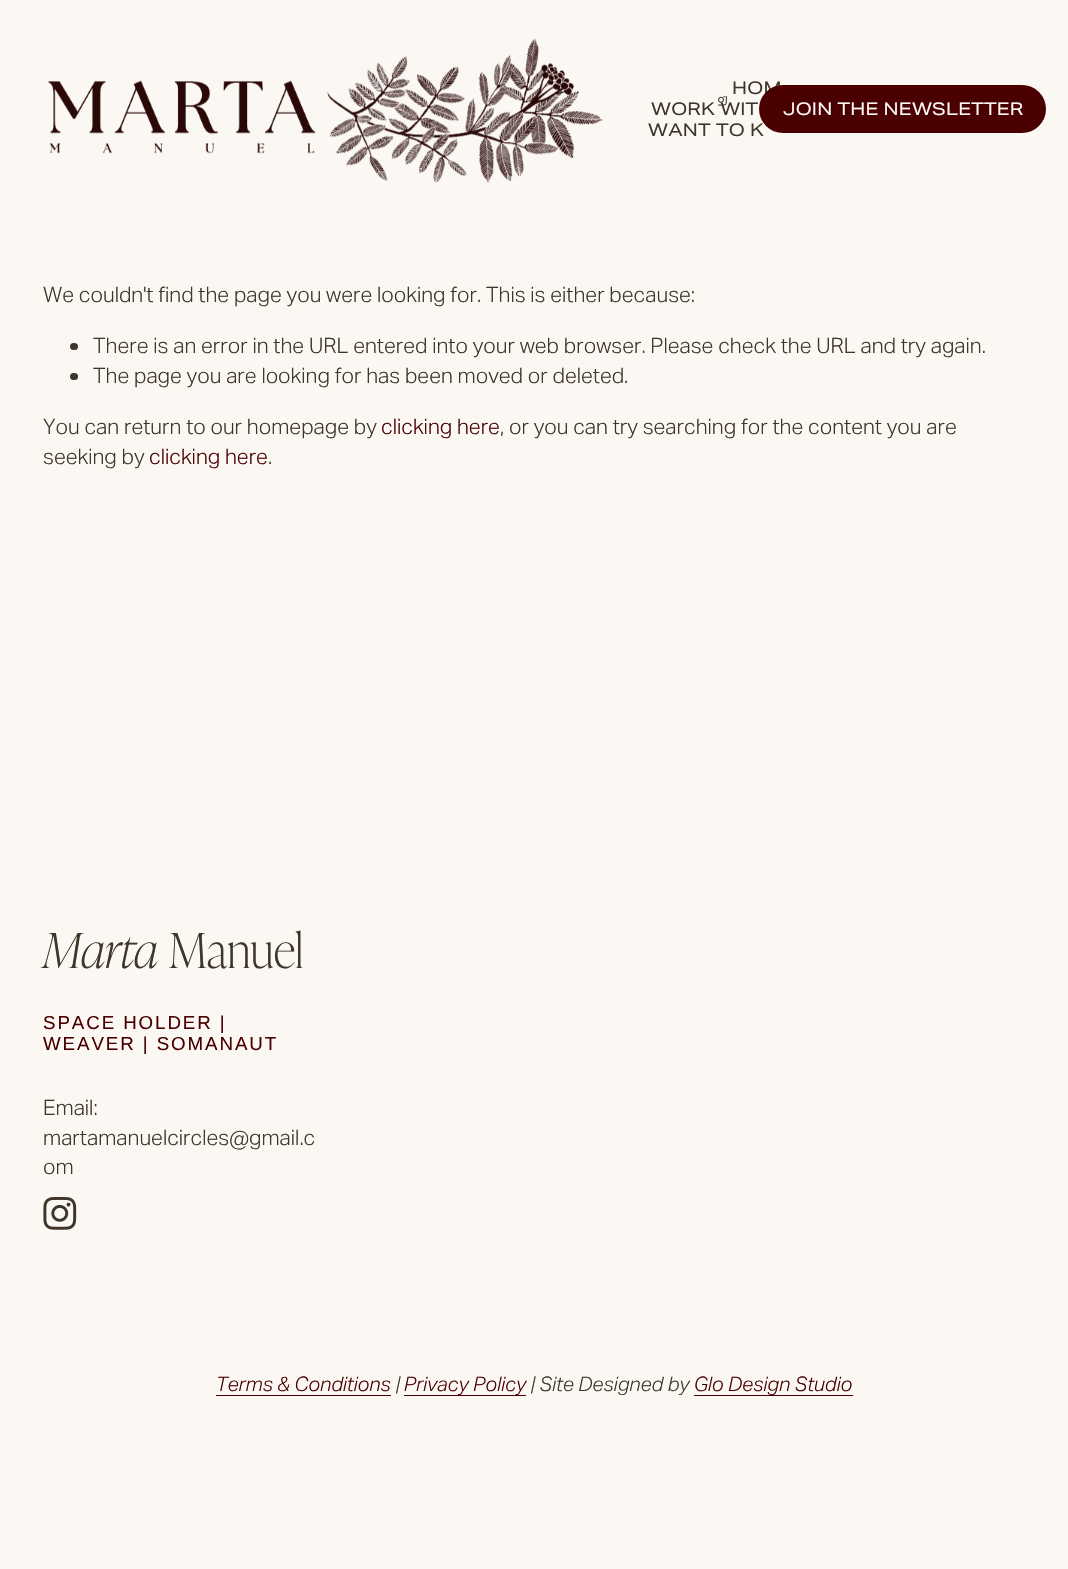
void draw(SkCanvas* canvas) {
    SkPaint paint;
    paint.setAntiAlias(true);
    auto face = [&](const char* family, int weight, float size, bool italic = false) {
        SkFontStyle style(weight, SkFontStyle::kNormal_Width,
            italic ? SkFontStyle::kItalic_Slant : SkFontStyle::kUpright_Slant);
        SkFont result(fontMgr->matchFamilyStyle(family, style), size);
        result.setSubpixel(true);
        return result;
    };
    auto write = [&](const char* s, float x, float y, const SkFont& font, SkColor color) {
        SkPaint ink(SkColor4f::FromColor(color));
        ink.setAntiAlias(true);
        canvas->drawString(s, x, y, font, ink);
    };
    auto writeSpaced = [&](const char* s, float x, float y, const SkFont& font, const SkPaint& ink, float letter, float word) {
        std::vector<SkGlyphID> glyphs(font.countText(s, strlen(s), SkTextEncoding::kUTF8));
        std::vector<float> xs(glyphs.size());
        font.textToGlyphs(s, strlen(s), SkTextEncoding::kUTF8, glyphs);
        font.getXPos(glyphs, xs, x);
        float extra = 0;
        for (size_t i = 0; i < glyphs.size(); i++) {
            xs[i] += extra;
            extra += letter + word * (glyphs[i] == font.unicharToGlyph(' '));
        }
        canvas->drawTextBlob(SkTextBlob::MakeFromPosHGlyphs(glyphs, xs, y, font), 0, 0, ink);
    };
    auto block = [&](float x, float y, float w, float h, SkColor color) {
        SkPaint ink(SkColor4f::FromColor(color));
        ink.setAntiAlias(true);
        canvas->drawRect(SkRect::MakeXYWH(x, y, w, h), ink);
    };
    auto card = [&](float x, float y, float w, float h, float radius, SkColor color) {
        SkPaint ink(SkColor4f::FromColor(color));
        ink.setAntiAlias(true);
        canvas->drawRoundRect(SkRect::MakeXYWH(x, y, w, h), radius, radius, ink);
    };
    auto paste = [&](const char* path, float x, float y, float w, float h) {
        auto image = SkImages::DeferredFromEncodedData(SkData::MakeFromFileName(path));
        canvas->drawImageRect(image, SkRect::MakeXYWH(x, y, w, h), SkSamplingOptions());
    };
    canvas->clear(SkColorSetRGB(251, 248, 244));
    paste("pic1.png", 48, 38, 555, 145);
    auto kFont1 = face("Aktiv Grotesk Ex", 400, 17.5f);
    paint.setColor(SkColorSetRGB(63, 53, 40));
    writeSpaced("HOM", 732, 94, kFont1, paint, 0.2f, 0);
    writeSpaced("WORK WIT", 651, 115, kFont1, paint, 0.2f, 0);
    writeSpaced("WANT TO K", 648, 136, kFont1, paint, 0.2f, 0);
    paste("pic2.png", 718, 96, 9, 10);
    card(759, 85, 287, 48, 24, SkColorSetRGB(74, 0, 0));
    paint.setColor(SkColorSetRGB(251, 248, 244));
    writeSpaced("JOIN THE NEWSLETTER", 783, 115, kFont1, paint, 0.2f, 0);
    auto kFont2 = face("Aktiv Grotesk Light", 300, 21.3f);
    write("We couldn't find the page you were looking for. This is either because:", 43, 302, kFont2, SkColorSetRGB(63, 53, 40));
    card(70, 343, 8, 7, 3.5f, SkColorSetRGB(63, 53, 40));
    write("There is an error in the URL entered into your web browser. Please check the URL and try again.", 93, 353, kFont2, SkColorSetRGB(63, 53, 40));
    card(70, 373, 8, 7, 3.5f, SkColorSetRGB(63, 53, 40));
    write("The page you are looking for has been moved or deleted.", 93, 383, kFont2, SkColorSetRGB(63, 53, 40));
    write("You can return to our homepage by", 43, 434, kFont2, SkColorSetRGB(63, 53, 40));
    write("clicking here", 381, 434, kFont2, SkColorSetRGB(74, 0, 0));
    write(", or you can try searching for the content you are", 500, 434, kFont2, SkColorSetRGB(63, 53, 40));
    write("seeking by", 43, 464, kFont2, SkColorSetRGB(63, 53, 40));
    write("clicking here", 149, 464, kFont2, SkColorSetRGB(74, 0, 0));
    write(".", 268, 464, kFont2, SkColorSetRGB(63, 53, 40));
    auto kFont3 = face("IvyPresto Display", 100, 48, true);
    write("Marta", 43, 968, kFont3, SkColorSetRGB(63, 53, 40));
    auto kFont4 = face("IvyPresto Display", 100, 48);
    write("Manuel", 169, 968, kFont4, SkColorSetRGB(63, 53, 40));
    auto kFont5 = face("Liberation Sans", 400, 18.75f);
    paint.setColor(SkColorSetRGB(74, 0, 0));
    writeSpaced("SPACE HOLDER |", 43, 1029, kFont5, paint, 1.9f, 0);
    writeSpaced("WEAVER | SOMANAUT", 43, 1050, kFont5, paint, 1.9f, 0);
    write("Email:", 43, 1115, kFont2, SkColorSetRGB(63, 53, 40));
    write("martamanuelcircles@gmail.c", 43, 1145, kFont2, SkColorSetRGB(63, 53, 40));
    write("om", 43, 1174, kFont2, SkColorSetRGB(63, 53, 40));
    paste("pic3.png", 43, 1196, 34, 34);
    auto kFont6 = face("Aktiv Grotesk Light", 300, 20, true);
    write("Terms & Conditions", 216, 1391, kFont6, SkColorSetRGB(74, 0, 0));
    block(216, 1395, 175, 1, SkColorSetRGB(74, 0, 0));
    write("|", 396, 1391, kFont6, SkColorSetRGB(63, 53, 40));
    block(404, 1395, 122, 1, SkColorSetRGB(74, 0, 0));
    write("Privacy Policy", 404, 1391, kFont6, SkColorSetRGB(74, 0, 0));
    write("| Site Designed by", 531, 1391, kFont6, SkColorSetRGB(63, 53, 40));
    block(694, 1395, 159, 1, SkColorSetRGB(74, 0, 0));
    write("Glo Design Studio", 694, 1391, kFont6, SkColorSetRGB(74, 0, 0));
}
